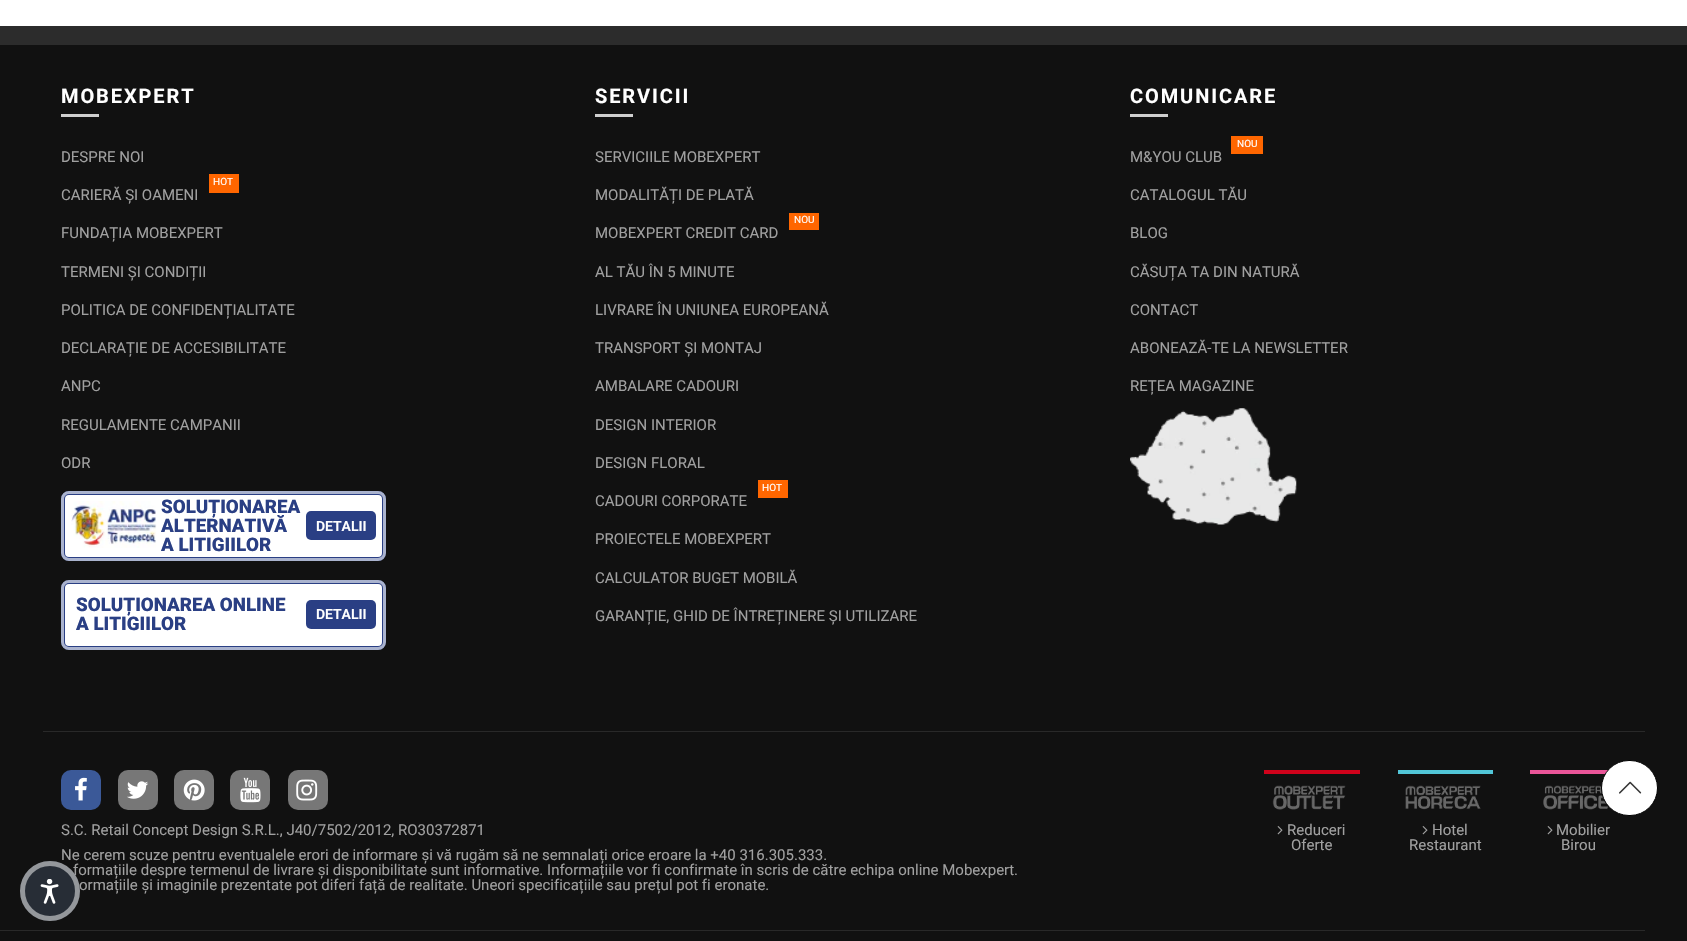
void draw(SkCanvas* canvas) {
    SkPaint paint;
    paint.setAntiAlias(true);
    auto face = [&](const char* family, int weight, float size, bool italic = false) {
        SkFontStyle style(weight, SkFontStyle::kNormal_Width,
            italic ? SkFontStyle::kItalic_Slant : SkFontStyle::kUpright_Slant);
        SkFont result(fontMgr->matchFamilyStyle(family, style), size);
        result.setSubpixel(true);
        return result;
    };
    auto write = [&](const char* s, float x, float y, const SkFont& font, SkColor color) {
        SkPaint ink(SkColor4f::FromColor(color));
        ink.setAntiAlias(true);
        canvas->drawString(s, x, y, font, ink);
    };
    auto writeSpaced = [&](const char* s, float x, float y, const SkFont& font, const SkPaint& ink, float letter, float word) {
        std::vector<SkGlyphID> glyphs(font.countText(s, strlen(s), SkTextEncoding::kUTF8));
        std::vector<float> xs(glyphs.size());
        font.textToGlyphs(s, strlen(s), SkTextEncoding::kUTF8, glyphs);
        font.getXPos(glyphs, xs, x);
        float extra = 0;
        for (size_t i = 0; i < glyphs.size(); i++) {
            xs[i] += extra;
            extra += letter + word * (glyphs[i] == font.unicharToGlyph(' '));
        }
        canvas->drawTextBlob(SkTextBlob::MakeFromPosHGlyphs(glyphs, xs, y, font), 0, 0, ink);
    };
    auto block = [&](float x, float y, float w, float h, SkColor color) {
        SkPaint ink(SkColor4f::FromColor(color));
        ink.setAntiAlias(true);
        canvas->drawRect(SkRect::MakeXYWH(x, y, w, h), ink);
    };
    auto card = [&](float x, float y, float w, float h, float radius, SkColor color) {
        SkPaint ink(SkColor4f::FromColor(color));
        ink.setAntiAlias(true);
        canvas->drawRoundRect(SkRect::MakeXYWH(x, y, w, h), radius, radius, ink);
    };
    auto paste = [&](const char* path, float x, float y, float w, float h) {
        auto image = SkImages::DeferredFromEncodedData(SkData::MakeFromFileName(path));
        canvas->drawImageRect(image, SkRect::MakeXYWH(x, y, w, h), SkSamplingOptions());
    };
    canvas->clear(SkColorSetRGB(44, 44, 44));
    block(0, 0, 1687, 26, SK_ColorWHITE);
    block(0, 45, 1687, 896, SkColorSetRGB(17, 17, 17));
    auto kFont1 = face("Roboto", 700, 20);
    paint.setColor(SK_ColorWHITE);
    writeSpaced("MOBEXPERT", 61, 103, kFont1, paint, 1.9f, 0);
    block(61, 114, 38, 3, SkColorSetRGB(207, 207, 207));
    auto kFont2 = face("Roboto", 400, 15);
    write("DESPRE NOI", 61, 162, kFont2, SkColorSetRGB(160, 160, 160));
    block(209, 174, 30, 19, SkColorSetRGB(255, 102, 0));
    auto kFont3 = face("Roboto", 400, 10);
    write("HOT", 213, 185, kFont3, SK_ColorWHITE);
    write("CARIERĂ ȘI OAMENI", 61, 200, kFont2, SkColorSetRGB(160, 160, 160));
    write("FUNDAȚIA MOBEXPERT", 61, 238, kFont2, SkColorSetRGB(160, 160, 160));
    write("TERMENI ȘI CONDIȚII", 61, 277, kFont2, SkColorSetRGB(160, 160, 160));
    write("POLITICA DE CONFIDENȚIALITATE", 61, 315, kFont2, SkColorSetRGB(160, 160, 160));
    write("DECLARAȚIE DE ACCESIBILITATE", 61, 353, kFont2, SkColorSetRGB(160, 160, 160));
    write("ANPC", 61, 391, kFont2, SkColorSetRGB(160, 160, 160));
    write("REGULAMENTE CAMPANII", 61, 430, kFont2, SkColorSetRGB(160, 160, 160));
    write("ODR", 61, 468, kFont2, SkColorSetRGB(160, 160, 160));
    canvas->drawRoundRect(SkRect::MakeXYWH(63, 493, 321, 66), 6, 6, paint);
    paint.setStyle(SkPaint::kStroke_Style);
    paint.setStrokeWidth(4);
    paint.setColor(SkColorSetRGB(42, 63, 132));
    canvas->drawRoundRect(SkRect::MakeXYWH(63, 493, 321, 66), 6, 6, paint);
    paint.setStrokeWidth(3);
    paint.setColor(SkColorSetARGB(153, 255, 255, 255));
    canvas->drawRoundRect(SkRect::MakeXYWH(62.5f, 492.5f, 322, 67), 6.5f, 6.5f, paint);
    paste("pic1.png", 71, 501, 86, 47);
    auto kFont4 = face("Roboto", 900, 18.75f);
    write("SOLUȚIONAREA", 161, 513, kFont4, SkColorSetRGB(42, 63, 132));
    write("ALTERNATIVĂ", 161, 532, kFont4, SkColorSetRGB(42, 63, 132));
    write("A LITIGIILOR", 161, 551, kFont4, SkColorSetRGB(42, 63, 132));
    card(306, 511, 70, 29, 5, SkColorSetRGB(42, 63, 132));
    auto kFont5 = face("Roboto", 600, 14);
    write("DETALII", 316, 531, kFont5, SK_ColorWHITE);
    paint.setStyle(SkPaint::kFill_Style);
    paint.setColor(SK_ColorWHITE);
    canvas->drawRoundRect(SkRect::MakeXYWH(63, 582, 321, 66), 6, 6, paint);
    paint.setStyle(SkPaint::kStroke_Style);
    paint.setStrokeWidth(4);
    paint.setColor(SkColorSetRGB(42, 63, 132));
    canvas->drawRoundRect(SkRect::MakeXYWH(63, 582, 321, 66), 6, 6, paint);
    paint.setStrokeWidth(3);
    paint.setColor(SkColorSetARGB(153, 255, 255, 255));
    canvas->drawRoundRect(SkRect::MakeXYWH(62.5f, 581.5f, 322, 67), 6.5f, 6.5f, paint);
    write("SOLUȚIONAREA ONLINE", 76, 611, kFont4, SkColorSetRGB(42, 63, 132));
    write("A LITIGIILOR", 76, 630, kFont4, SkColorSetRGB(42, 63, 132));
    card(306, 600, 70, 29, 5, SkColorSetRGB(42, 63, 132));
    write("DETALII", 316, 619, kFont5, SK_ColorWHITE);
    paint.setStyle(SkPaint::kFill_Style);
    paint.setColor(SK_ColorWHITE);
    writeSpaced("SERVICII", 595, 103, kFont1, paint, 1.9f, 0);
    block(595, 114, 38, 3, SkColorSetRGB(207, 207, 207));
    write("SERVICIILE MOBEXPERT", 595, 162, kFont2, SkColorSetRGB(160, 160, 160));
    write("MODALITĂȚI DE PLATĂ", 595, 200, kFont2, SkColorSetRGB(160, 160, 160));
    block(789, 213, 30, 17, SkColorSetRGB(255, 102, 0));
    write("NOU", 794, 223, kFont3, SK_ColorWHITE);
    write("MOBEXPERT CREDIT CARD", 595, 238, kFont2, SkColorSetRGB(160, 160, 160));
    write("AL TĂU ÎN 5 MINUTE", 595, 277, kFont2, SkColorSetRGB(160, 160, 160));
    write("LIVRARE ÎN UNIUNEA EUROPEANĂ", 595, 315, kFont2, SkColorSetRGB(160, 160, 160));
    write("TRANSPORT ȘI MONTAJ", 595, 353, kFont2, SkColorSetRGB(160, 160, 160));
    write("AMBALARE CADOURI", 595, 391, kFont2, SkColorSetRGB(160, 160, 160));
    write("DESIGN INTERIOR", 595, 430, kFont2, SkColorSetRGB(160, 160, 160));
    write("DESIGN FLORAL", 595, 468, kFont2, SkColorSetRGB(160, 160, 160));
    block(758, 480, 30, 18, SkColorSetRGB(255, 102, 0));
    write("HOT", 762, 491, kFont3, SK_ColorWHITE);
    write("CADOURI CORPORATE", 595, 506, kFont2, SkColorSetRGB(160, 160, 160));
    write("PROIECTELE MOBEXPERT", 595, 544, kFont2, SkColorSetRGB(160, 160, 160));
    write("CALCULATOR BUGET MOBILĂ", 595, 583, kFont2, SkColorSetRGB(160, 160, 160));
    write("GARANȚIE, GHID DE ÎNTREȚINERE ȘI UTILIZARE", 595, 621, kFont2, SkColorSetRGB(160, 160, 160));
    writeSpaced("COMUNICARE", 1130, 103, kFont1, paint, 1.9f, 0);
    block(1130, 114, 38, 3, SkColorSetRGB(207, 207, 207));
    block(1231, 136, 32, 18, SkColorSetRGB(255, 102, 0));
    write("NOU", 1237, 147, kFont3, SK_ColorWHITE);
    write("M&YOU CLUB", 1130, 162, kFont2, SkColorSetRGB(160, 160, 160));
    write("CATALOGUL TĂU", 1130, 200, kFont2, SkColorSetRGB(160, 160, 160));
    write("BLOG", 1130, 238, kFont2, SkColorSetRGB(160, 160, 160));
    write("CĂSUȚA TA DIN NATURĂ", 1130, 277, kFont2, SkColorSetRGB(160, 160, 160));
    write("CONTACT", 1130, 315, kFont2, SkColorSetRGB(160, 160, 160));
    write("ABONEAZĂ-TE LA NEWSLETTER", 1130, 353, kFont2, SkColorSetRGB(160, 160, 160));
    write("REȚEA MAGAZINE", 1130, 391, kFont2, SkColorSetRGB(160, 160, 160));
    paste("pic2.png", 1130, 408, 167, 117);
    block(43, 731, 1602, 1, SkColorSetRGB(41, 41, 41));
    card(61, 770, 40, 40, 10, SkColorSetRGB(59, 89, 152));
    paste("pic3.png", 75, 777, 12, 24);
    card(118, 770, 40, 40, 10, SkColorSetRGB(119, 119, 119));
    paste("pic4.png", 127, 781, 22, 18);
    card(174, 770, 40, 40, 10, SkColorSetRGB(119, 119, 119));
    paste("pic5.png", 183, 779, 22, 22);
    card(230, 770, 40, 40, 10, SkColorSetRGB(119, 119, 119));
    paste("pic6.png", 240, 777, 21, 26);
    card(288, 770, 40, 40, 10, SkColorSetRGB(119, 119, 119));
    paste("pic7.png", 296, 779, 22, 22);
    write("S.C. Retail Concept Design S.R.L., J40/7502/2012, RO30372871", 61, 835, kFont2, SkColorSetRGB(160, 160, 160));
    write("Ne cerem scuze pentru eventualele erori de informare și vă rugăm să ne semnalați orice eroare la +40 316.305.333.", 61, 860, kFont2, SkColorSetRGB(160, 160, 160));
    write("formațiile despre termenul de livrare și disponibilitate sunt informative. Informațiile vor fi confirmate în scris de către echipa online Mobexpert.", 73, 875, kFont2, SkColorSetRGB(160, 160, 160));
    write("ormațiile și imaginile prezentate pot diferi față de realitate. Uneori specificațiile sau prețul pot fi eronate.", 79, 890, kFont2, SkColorSetRGB(160, 160, 160));
    block(1264, 770, 96, 4, SkColorSetRGB(208, 2, 27));
    paste("pic8.png", 1272, 785, 74, 25);
    paste("pic9.png", 1277, 826, 6, 9);
    write("Reduceri", 1287, 835, kFont2, SkColorSetRGB(160, 160, 160));
    write("Oferte", 1291, 850, kFont2, SkColorSetRGB(160, 160, 160));
    block(1398, 770, 95, 4, SkColorSetRGB(82, 198, 216));
    paste("pic10.png", 1405, 785, 76, 25);
    paste("pic9.png", 1422, 826, 6, 9);
    write("Hotel", 1432, 835, kFont2, SkColorSetRGB(160, 160, 160));
    write("Restaurant", 1409, 850, kFont2, SkColorSetRGB(160, 160, 160));
    block(1530, 770, 78, 4, SkColorSetRGB(234, 86, 153));
    paste("pic11.png", 1543, 785, 66, 25);
    paste("pic9.png", 1547, 826, 6, 9);
    write("Mobilier", 1556, 835, kFont2, SkColorSetRGB(160, 160, 160));
    write("Birou", 1561, 850, kFont2, SkColorSetRGB(160, 160, 160));
    block(0, 930, 1645, 1, SkColorSetRGB(41, 41, 41));
    canvas->drawRoundRect(SkRect::MakeXYWH(1601.5f, 760.5f, 56, 55), 27.5f, 27.5f, paint);
    paint.setStyle(SkPaint::kStroke_Style);
    paint.setStrokeWidth(1);
    paint.setColor(SK_ColorBLACK);
    canvas->drawRoundRect(SkRect::MakeXYWH(1601.5f, 760.5f, 56, 55), 27.5f, 27.5f, paint);
    paste("pic12.png", 1619, 781, 23, 13);
    paint.setStyle(SkPaint::kFill_Style);
    paint.setColor(SkColorSetRGB(39, 45, 54));
    canvas->drawCircle(50, 891, 30, paint);
    paint.setStyle(SkPaint::kStroke_Style);
    paint.setStrokeWidth(5);
    paint.setColor(SkColorSetARGB(128, 255, 255, 255));
    canvas->drawCircle(50, 891, 27.5f, paint);
    paste("pic13.png", 40, 879, 19, 25);
}
